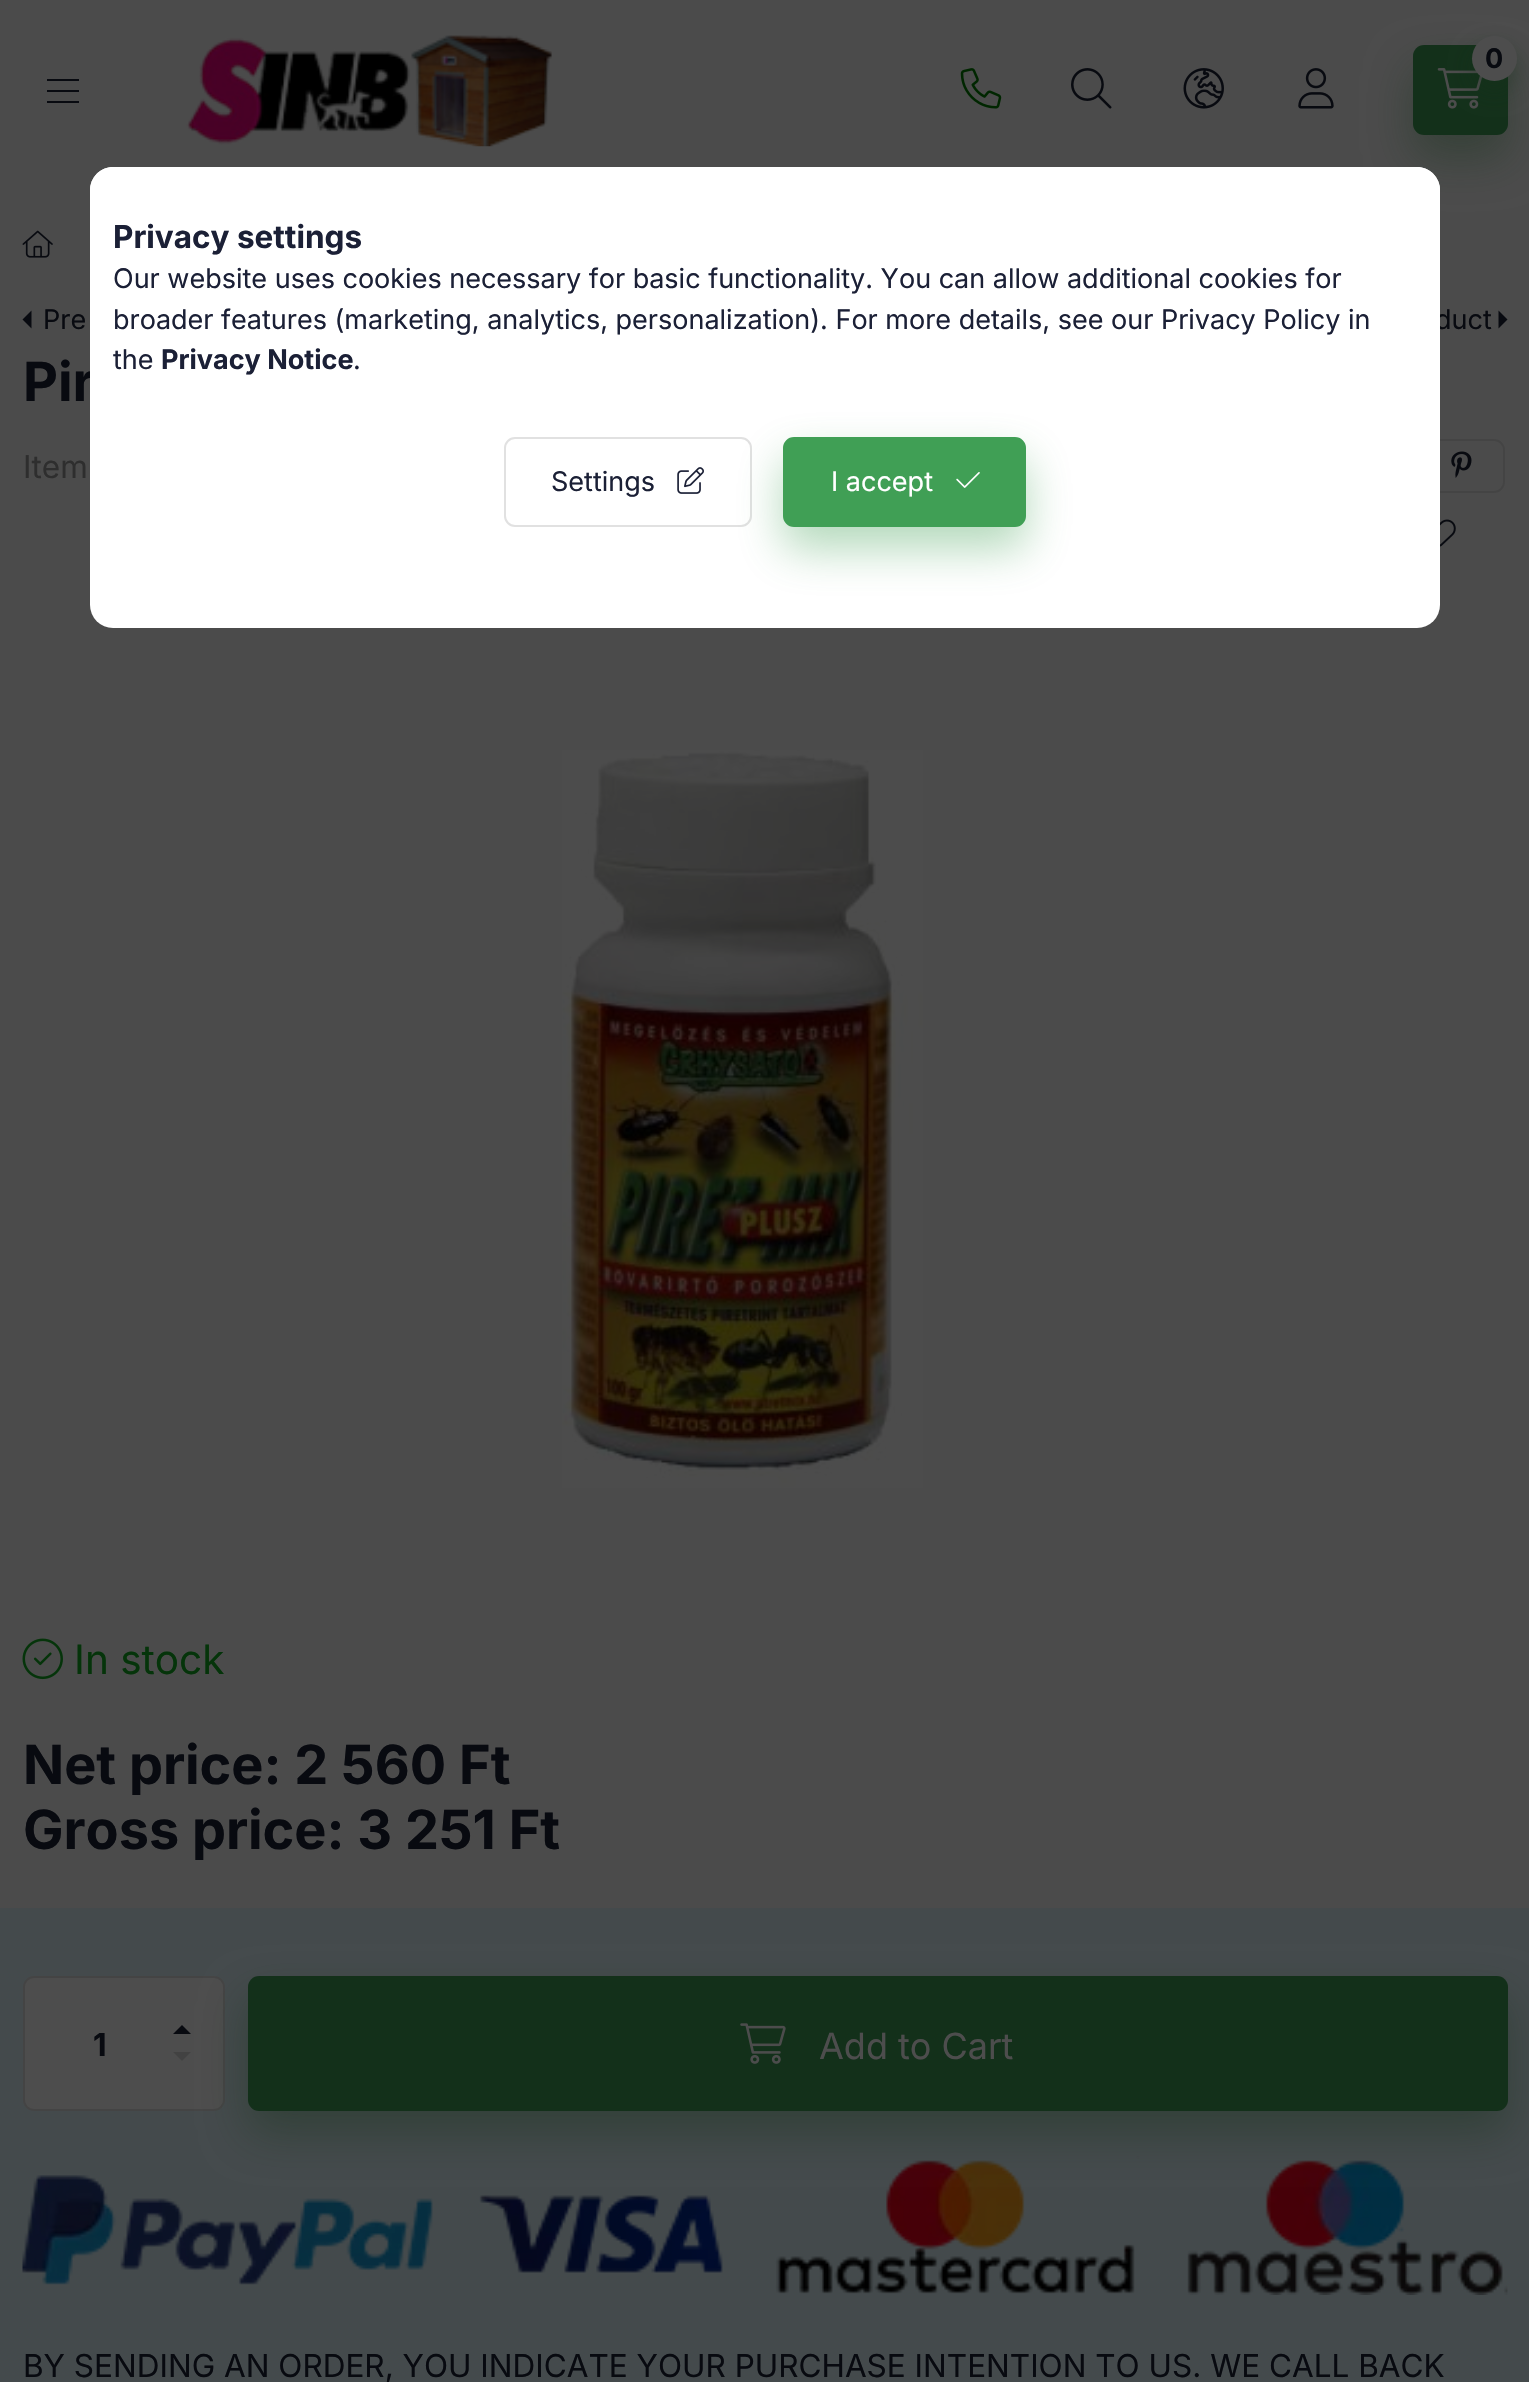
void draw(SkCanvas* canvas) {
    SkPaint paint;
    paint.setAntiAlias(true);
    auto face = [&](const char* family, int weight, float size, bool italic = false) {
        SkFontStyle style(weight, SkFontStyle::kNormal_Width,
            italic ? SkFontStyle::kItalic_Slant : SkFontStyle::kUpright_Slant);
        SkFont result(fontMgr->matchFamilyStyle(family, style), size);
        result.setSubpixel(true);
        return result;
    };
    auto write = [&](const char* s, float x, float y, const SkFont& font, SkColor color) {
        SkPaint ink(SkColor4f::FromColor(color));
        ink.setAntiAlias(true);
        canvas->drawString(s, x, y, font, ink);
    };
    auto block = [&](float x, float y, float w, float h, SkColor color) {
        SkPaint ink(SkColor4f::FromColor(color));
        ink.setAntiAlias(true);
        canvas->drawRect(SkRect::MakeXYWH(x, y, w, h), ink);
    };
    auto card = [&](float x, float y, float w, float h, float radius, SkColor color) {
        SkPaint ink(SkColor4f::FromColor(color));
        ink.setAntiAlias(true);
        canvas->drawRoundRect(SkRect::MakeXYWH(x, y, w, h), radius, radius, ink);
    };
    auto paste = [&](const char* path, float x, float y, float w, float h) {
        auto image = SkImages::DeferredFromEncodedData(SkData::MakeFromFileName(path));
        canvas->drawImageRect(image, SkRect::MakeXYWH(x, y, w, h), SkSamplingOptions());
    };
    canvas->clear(SkColorSetRGB(75, 75, 75));
    block(47, 79, 32, 2, SkColorSetRGB(8, 10, 16));
    block(47, 90, 32, 2, SkColorSetRGB(8, 10, 16));
    block(47, 101, 32, 2, SkColorSetRGB(8, 10, 16));
    paste("pic1.png", 186, 35, 366, 112);
    paste("pic2.png", 960, 68, 42, 41);
    paint.setColor(SkColorSetARGB(102, 19, 48, 26));
    paint.setMaskFilter(SkMaskFilter::MakeBlur(kNormal_SkBlurStyle, 22.5f));
    canvas->drawRoundRect(SkRect::MakeXYWH(1413, 68, 95, 90), 11, 11, paint);
    paint.setMaskFilter(nullptr);
    card(1413, 45, 95, 90, 11, SkColorSetRGB(19, 48, 26));
    paste("pic3.png", 1437, 68, 46, 41);
    paint.setMaskFilter(SkMaskFilter::MakeBlur(kNormal_SkBlurStyle, 11));
    canvas->drawRoundRect(SkRect::MakeXYWH(1472, 47, 45, 45), 22.5f, 22.5f, paint);
    paint.setMaskFilter(nullptr);
    paint.setColor(SkColorSetRGB(77, 77, 77));
    canvas->drawCircle(1494.5f, 58.5f, 22.5f, paint);
    auto kFont1 = face("Inter", 700, 27);
    write("0", 1485, 68, kFont1, SkColorSetRGB(8, 10, 16));
    paste("pic4.png", 1071, 68, 41, 41);
    paste("pic5.png", 1183, 68, 41, 41);
    paste("pic6.png", 1298, 68, 36, 41);
    paste("pic7.png", 22, 230, 31, 28);
    paint.setColor(SkColorSetRGB(8, 10, 16));
    canvas->drawPath(SkPathBuilder().moveTo(31.5f, 328.5f).lineTo(31.5f, 310.5f).lineTo(22.5f, 319.5f).close().detach(), paint);
    auto kFont2 = face("Inter", 400, 27);
    write("Pre", 43, 329, kFont2, SkColorSetRGB(8, 10, 16));
    write("duct", 1435, 329, kFont2, SkColorSetRGB(8, 10, 16));
    canvas->drawPath(SkPathBuilder().moveTo(1498.5f, 328.5f).lineTo(1498.5f, 310.5f).lineTo(1507.5f, 319.5f).close().detach(), paint);
    auto kFont3 = face("Inter", 700, 54);
    write("Pir", 23, 401, kFont3, SkColorSetRGB(8, 10, 16));
    auto kFont4 = face("Inter", 400, 31.5f);
    write("Item", 23, 478, kFont4, SkColorSetRGB(46, 46, 46));
    paint.setStyle(SkPaint::kStroke_Style);
    paint.setStrokeWidth(2);
    paint.setColor(SkColorSetRGB(68, 68, 68));
    canvas->drawRoundRect(SkRect::MakeXYWH(1416, 440, 88, 52), 10, 10, paint);
    paste("pic8.png", 1451, 451, 21, 27);
    paste("pic9.png", 1440, 519, 16, 28);
    paste("pic10.png", 562, 750, 361, 738);
    paste("pic11.png", 22, 1638, 41, 42);
    auto kFont5 = face("Inter", 400, 40.5f);
    write("In stock", 74, 1674, kFont5, SkColorSetRGB(5, 52, 10));
    write("Net price: 2 560 Ft", 23, 1784, kFont3, SkColorSetRGB(8, 10, 16));
    write("Gross price: 3 251 Ft", 23, 1849, kFont3, SkColorSetRGB(8, 10, 16));
    block(0, 1908, 1529, 474, SkColorSetRGB(68, 74, 76));
    paint.setStyle(SkPaint::kFill_Style);
    paint.setColor(SkColorSetRGB(77, 77, 77));
    canvas->drawRoundRect(SkRect::MakeXYWH(24, 1977, 200, 133), 10, 10, paint);
    paint.setStyle(SkPaint::kStroke_Style);
    paint.setColor(SkColorSetRGB(68, 68, 68));
    canvas->drawRoundRect(SkRect::MakeXYWH(24, 1977, 200, 133), 10, 10, paint);
    auto kFont6 = face("Inter", 700, 31.5f);
    write("1", 93, 2056, kFont6, SkColorSetRGB(8, 10, 16));
    paint.setStyle(SkPaint::kFill_Style);
    paint.setColor(SkColorSetRGB(8, 10, 16));
    canvas->drawPath(SkPathBuilder().moveTo(191, 2034).lineTo(173, 2034).lineTo(182, 2025).close().detach(), paint);
    paint.setColor(SkColorSetRGB(66, 66, 66));
    canvas->drawPath(SkPathBuilder().moveTo(173, 2052).lineTo(191, 2052).lineTo(182, 2061).close().detach(), paint);
    paste("pic13.png", 22, 2156, 1486, 139);
    paint.setColor(SkColorSetARGB(102, 19, 48, 26));
    paint.setMaskFilter(SkMaskFilter::MakeBlur(kNormal_SkBlurStyle, 22.5f));
    canvas->drawRoundRect(SkRect::MakeXYWH(248, 1998, 1260, 135), 11, 11, paint);
    paint.setMaskFilter(nullptr);
    card(248, 1976, 1260, 135, 11, SkColorSetRGB(19, 48, 26));
    paste("pic12.png", 740, 2023, 46, 41);
    auto kFont7 = face("Inter", 400, 36);
    write("Add to Cart", 819, 2059, kFont7, SkColorSetRGB(77, 77, 77));
    write("BY SENDING AN ORDER, YOU INDICATE YOUR PURCHASE INTENTION TO US. WE CALL BACK", 23, 2377, kFont4, SkColorSetRGB(8, 10, 16));
    card(90, 167, 1350, 461, 23, SK_ColorWHITE);
    paint.setColor(SK_ColorWHITE);
    canvas->drawPath(SkPathBuilder().moveTo(113, 167).lineTo(1417, 167).cubicTo(1429.5f, 167, 1440, 177.5f, 1440, 190).lineTo(1440, 583).lineTo(90, 583).lineTo(90, 190).cubicTo(90, 177.5f, 100.5f, 167, 113, 167).close().detach(), paint);
    write("Privacy settings", 113, 248, kFont6, SkColorSetRGB(27, 32, 54));
    write("Our website uses cookies necessary for basic functionality. You can allow additional cookies for", 113, 288, kFont2, SkColorSetRGB(27, 32, 54));
    write("broader features (marketing, analytics, personalization). For more details, see our Privacy Policy in", 113, 329, kFont2, SkColorSetRGB(27, 32, 54));
    write("the", 113, 369, kFont2, SkColorSetRGB(27, 32, 54));
    write("Privacy Notice", 161, 369, kFont1, SkColorSetRGB(27, 32, 54));
    write(".", 353, 369, kFont2, SkColorSetRGB(27, 32, 54));
    paint.setStyle(SkPaint::kStroke_Style);
    paint.setColor(SkColorSetRGB(225, 225, 225));
    canvas->drawRoundRect(SkRect::MakeXYWH(505, 438, 246, 88), 10, 10, paint);
    write("Settings", 551, 491, kFont2, SkColorSetRGB(27, 32, 54));
    paste("pic14.png", 677, 467, 27, 27);
    paint.setStyle(SkPaint::kFill_Style);
    paint.setColor(SkColorSetARGB(102, 64, 159, 85));
    paint.setMaskFilter(SkMaskFilter::MakeBlur(kNormal_SkBlurStyle, 22.5f));
    canvas->drawRoundRect(SkRect::MakeXYWH(783, 459, 243, 90), 11, 11, paint);
    paint.setMaskFilter(nullptr);
    paint.setColor(SkColorSetRGB(64, 159, 85));
    canvas->drawRoundRect(SkRect::MakeXYWH(784, 438, 241, 88), 10, 10, paint);
    paint.setStyle(SkPaint::kStroke_Style);
    canvas->drawRoundRect(SkRect::MakeXYWH(784, 438, 241, 88), 10, 10, paint);
    write("I accept", 831, 491, kFont2, SK_ColorWHITE);
    paste("pic15.png", 956, 472, 24, 16);
}
